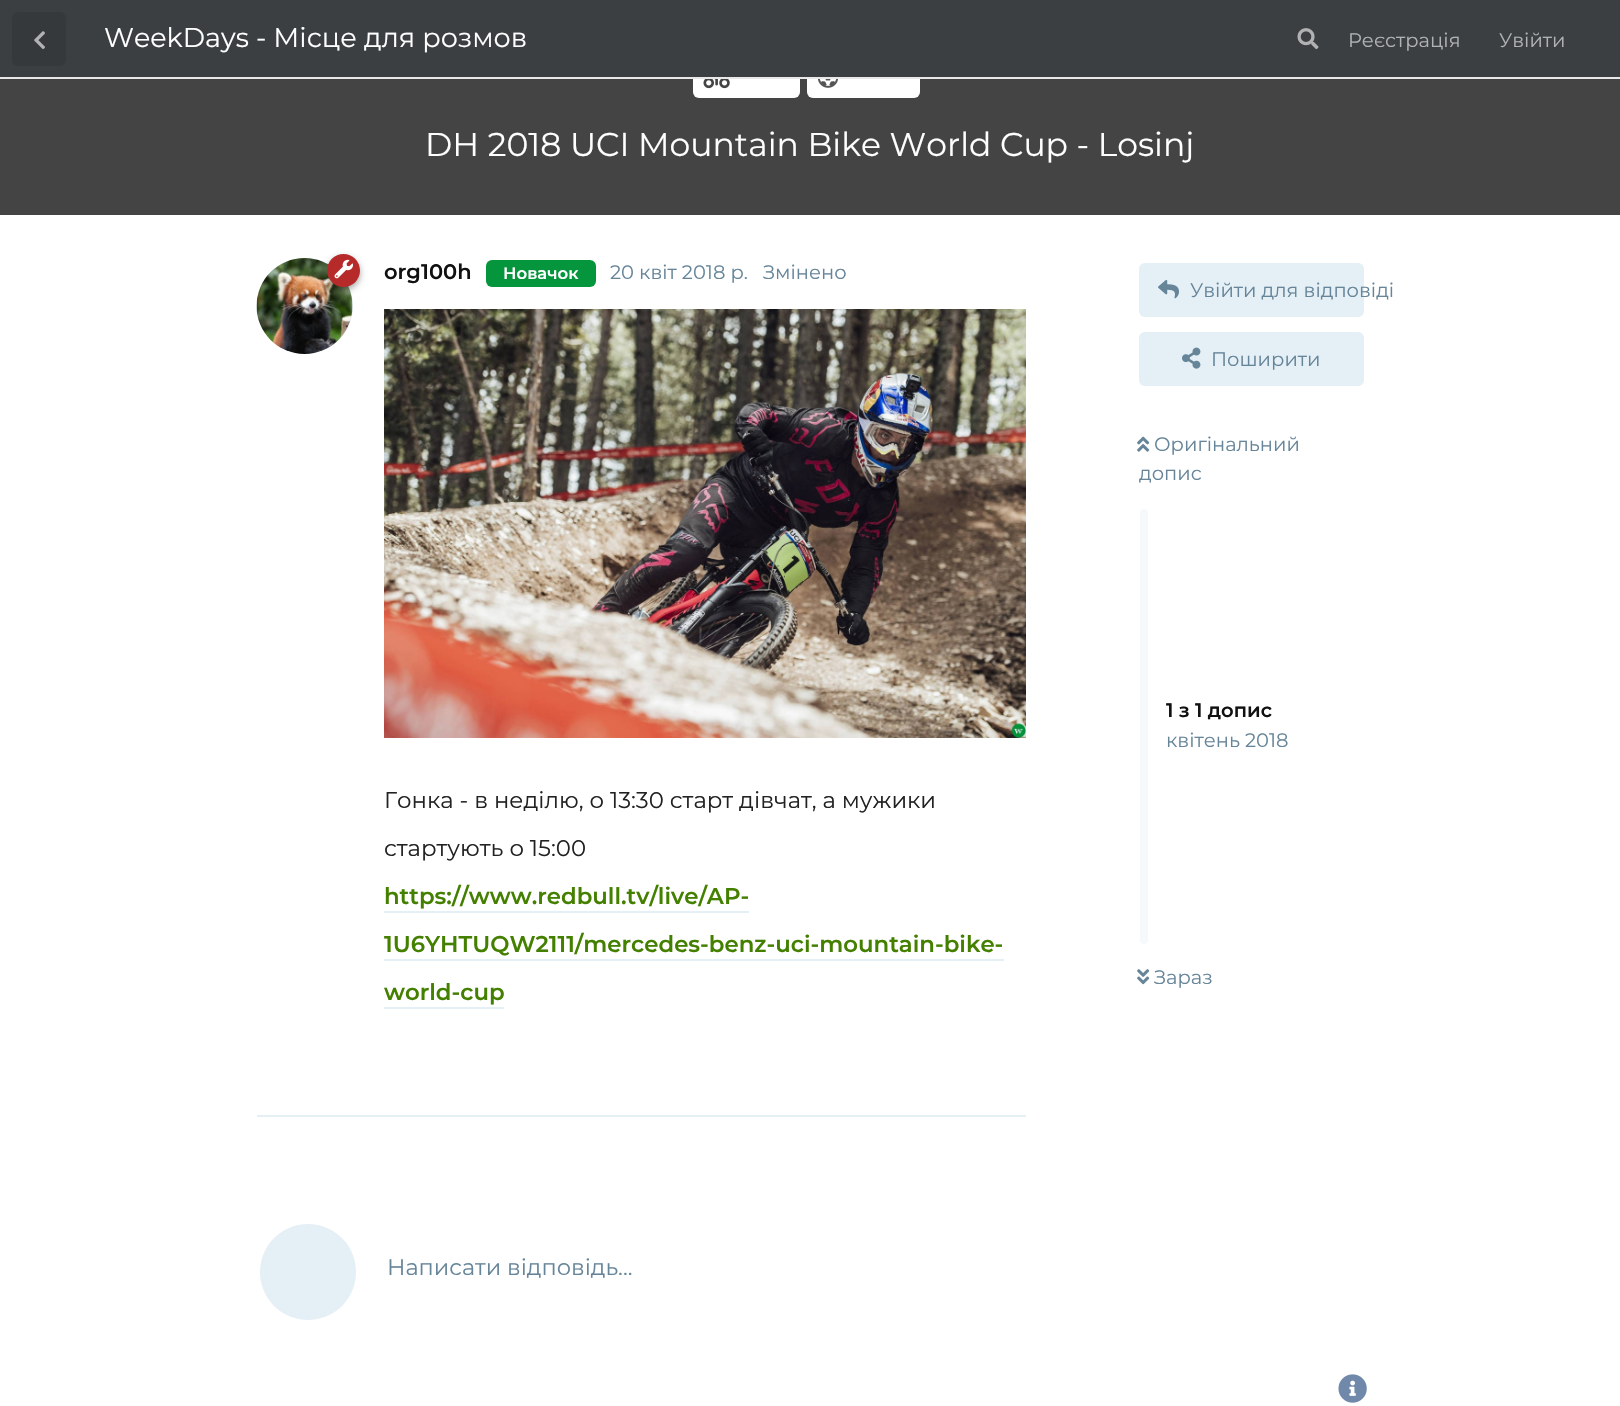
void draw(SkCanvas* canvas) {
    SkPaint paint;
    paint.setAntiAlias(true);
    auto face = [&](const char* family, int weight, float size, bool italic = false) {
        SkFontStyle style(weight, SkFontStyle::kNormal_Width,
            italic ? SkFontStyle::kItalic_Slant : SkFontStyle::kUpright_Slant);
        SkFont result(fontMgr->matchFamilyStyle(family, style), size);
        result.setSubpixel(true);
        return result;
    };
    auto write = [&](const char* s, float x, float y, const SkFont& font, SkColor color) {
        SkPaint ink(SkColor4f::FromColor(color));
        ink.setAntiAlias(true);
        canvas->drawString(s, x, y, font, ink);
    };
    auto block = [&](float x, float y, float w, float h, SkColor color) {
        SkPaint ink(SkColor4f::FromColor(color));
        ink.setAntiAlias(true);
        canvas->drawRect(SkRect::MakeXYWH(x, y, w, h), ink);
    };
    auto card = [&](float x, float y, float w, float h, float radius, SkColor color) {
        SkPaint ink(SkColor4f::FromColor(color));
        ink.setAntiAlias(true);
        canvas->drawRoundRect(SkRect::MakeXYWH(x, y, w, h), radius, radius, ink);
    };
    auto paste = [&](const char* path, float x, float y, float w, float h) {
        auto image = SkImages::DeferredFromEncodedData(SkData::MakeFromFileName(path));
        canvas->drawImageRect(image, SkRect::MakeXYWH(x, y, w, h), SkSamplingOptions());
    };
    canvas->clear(SK_ColorWHITE);
    block(0, 79, 1620, 136, SkColorSetRGB(68, 68, 68));
    card(693, 62, 107, 36, 6, SK_ColorWHITE);
    card(807, 62, 113, 36, 6, SK_ColorWHITE);
    block(0, 0, 1620, 77, SkColorSetRGB(59, 63, 66));
    block(0, 77, 1620, 2, SkColorSetRGB(232, 232, 232));
    card(12, 12, 54, 54, 6, SkColorSetRGB(53, 57, 59));
    paste("pic1.png", 34, 31, 11, 18);
    auto kFont1 = face("Montserrat", 400, 27);
    write("WeekDays - Місце для розмов", 104, 47, kFont1, SK_ColorWHITE);
    paste("pic2.png", 1297, 28, 22, 22);
    auto kFont2 = face("Montserrat", 400, 19.5f);
    write("Реєстрація", 1348, 47, kFont2, SkColorSetRGB(177, 178, 179));
    write("Увійти", 1499, 47, kFont2, SkColorSetRGB(177, 178, 179));
    paste("pic3.png", 703, 79, 27, 10);
    paste("pic4.png", 818, 79, 20, 9);
    auto kFont3 = face("Montserrat", 400, 33);
    write("DH 2018 UCI Mountain Bike World Cup - Losinj", 425, 156, kFont3, SK_ColorWHITE);
    block(257, 1115, 769, 2, SkColorSetRGB(228, 239, 246));
    paint.setColor(SkColorSetRGB(228, 239, 246));
    canvas->drawCircle(305, 306, 48, paint);
    paste("pic6.png", 256, 258, 97, 96);
    paint.setColor(SkColorSetARGB(89, 0, 0, 0));
    paint.setMaskFilter(SkMaskFilter::MakeBlur(kNormal_SkBlurStyle, 3));
    canvas->drawRoundRect(SkRect::MakeXYWH(327, 257, 33, 33), 16.5f, 16.5f, paint);
    paint.setMaskFilter(nullptr);
    paint.setColor(SkColorSetRGB(183, 42, 42));
    canvas->drawCircle(343.5f, 270.5f, 16.5f, paint);
    paste("pic5.png", 334, 259, 19, 20);
    auto kFont4 = face("Montserrat", 600, 21);
    write("org100h", 384, 279, kFont4, SkColorSetRGB(17, 17, 17));
    card(486, 260, 110, 27, 6, SkColorSetRGB(5, 149, 60));
    auto kFont5 = face("Montserrat", 600, 16.5f);
    write("Новачок", 503, 279, kFont5, SK_ColorWHITE);
    write("20 квiт 2018 р.", 610, 279, kFont2, SkColorSetRGB(102, 133, 153));
    write("Змінено", 763, 279, kFont2, SkColorSetRGB(102, 133, 153));
    paste("pic7.png", 384, 309, 642, 429);
    auto kFont6 = face("Montserrat", 400, 22.8f);
    write("Гонка - в неділю, о 13:30 старт дівчат, а мужики", 384, 808, kFont6, SkColorSetRGB(34, 34, 34));
    write("стартують о 15:00", 384, 856, kFont6, SkColorSetRGB(34, 34, 34));
    auto kFont7 = face("Montserrat", 600, 22.8f);
    write("https://www.redbull.tv/live/AP-", 384, 904, kFont7, SkColorSetRGB(68, 128, 0));
    block(384, 911, 365, 2, SkColorSetRGB(228, 239, 246));
    write("1U6YHTUQW2111/mercedes-benz-uci-mountain-bike-", 384, 952, kFont7, SkColorSetRGB(68, 128, 0));
    block(384, 959, 620, 2, SkColorSetRGB(228, 239, 246));
    write("world-cup", 384, 1000, kFont7, SkColorSetRGB(68, 128, 0));
    block(384, 1007, 120, 2, SkColorSetRGB(228, 239, 246));
    paint.setColor(SkColorSetRGB(228, 239, 246));
    canvas->drawCircle(308, 1272, 48, paint);
    auto kFont8 = face("Montserrat", 400, 22.5f);
    write("Написати відповідь...", 387, 1275, kFont8, SkColorSetRGB(102, 133, 153));
    card(1139, 263, 225, 54, 6, SkColorSetRGB(228, 239, 246));
    paste("pic8.png", 1158, 280, 21, 19);
    write("Увійти для відповіді", 1190, 297, kFont2, SkColorSetRGB(102, 133, 153));
    card(1139, 332, 225, 54, 6, SkColorSetRGB(228, 239, 246));
    paste("pic9.png", 1182, 347, 19, 22);
    write("Поширити", 1211, 366, kFont2, SkColorSetRGB(102, 133, 153));
    paste("pic10.png", 1137, 436, 13, 16);
    write("Оригінальний", 1154, 451, kFont2, SkColorSetRGB(102, 133, 153));
    write("допис", 1139, 480, kFont2, SkColorSetRGB(102, 133, 153));
    card(1140, 509, 8, 435, 4, SkColorSetRGB(246, 249, 252));
    auto kFont9 = face("Montserrat", 600, 19.5f);
    write("1 з 1 допис", 1166, 717, kFont9, SkColorSetRGB(17, 17, 17));
    write("квітень 2018", 1166, 747, kFont2, SkColorSetRGB(102, 133, 153));
    paste("pic11.png", 1137, 969, 13, 16);
    write("Зараз", 1154, 984, kFont2, SkColorSetRGB(102, 133, 153));
    paste("pic12.png", 1338, 1374, 29, 29);
}
